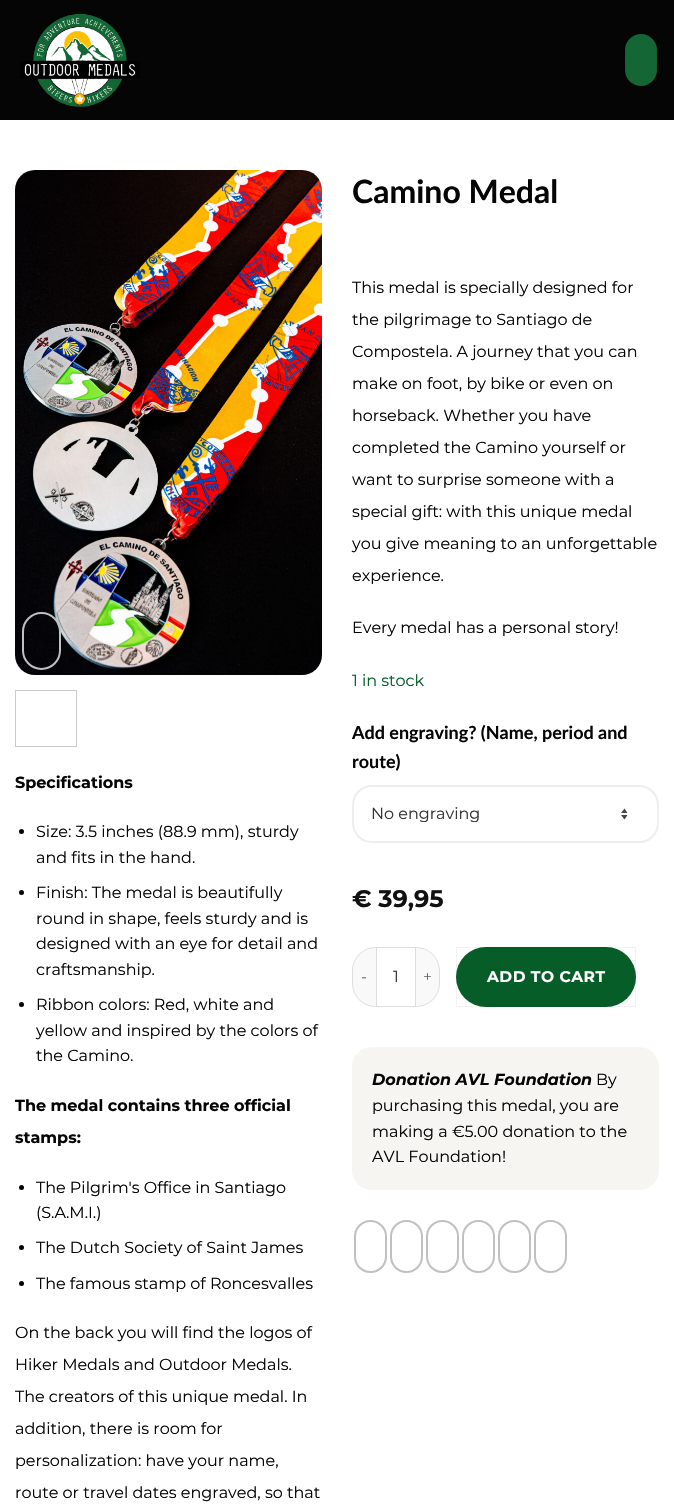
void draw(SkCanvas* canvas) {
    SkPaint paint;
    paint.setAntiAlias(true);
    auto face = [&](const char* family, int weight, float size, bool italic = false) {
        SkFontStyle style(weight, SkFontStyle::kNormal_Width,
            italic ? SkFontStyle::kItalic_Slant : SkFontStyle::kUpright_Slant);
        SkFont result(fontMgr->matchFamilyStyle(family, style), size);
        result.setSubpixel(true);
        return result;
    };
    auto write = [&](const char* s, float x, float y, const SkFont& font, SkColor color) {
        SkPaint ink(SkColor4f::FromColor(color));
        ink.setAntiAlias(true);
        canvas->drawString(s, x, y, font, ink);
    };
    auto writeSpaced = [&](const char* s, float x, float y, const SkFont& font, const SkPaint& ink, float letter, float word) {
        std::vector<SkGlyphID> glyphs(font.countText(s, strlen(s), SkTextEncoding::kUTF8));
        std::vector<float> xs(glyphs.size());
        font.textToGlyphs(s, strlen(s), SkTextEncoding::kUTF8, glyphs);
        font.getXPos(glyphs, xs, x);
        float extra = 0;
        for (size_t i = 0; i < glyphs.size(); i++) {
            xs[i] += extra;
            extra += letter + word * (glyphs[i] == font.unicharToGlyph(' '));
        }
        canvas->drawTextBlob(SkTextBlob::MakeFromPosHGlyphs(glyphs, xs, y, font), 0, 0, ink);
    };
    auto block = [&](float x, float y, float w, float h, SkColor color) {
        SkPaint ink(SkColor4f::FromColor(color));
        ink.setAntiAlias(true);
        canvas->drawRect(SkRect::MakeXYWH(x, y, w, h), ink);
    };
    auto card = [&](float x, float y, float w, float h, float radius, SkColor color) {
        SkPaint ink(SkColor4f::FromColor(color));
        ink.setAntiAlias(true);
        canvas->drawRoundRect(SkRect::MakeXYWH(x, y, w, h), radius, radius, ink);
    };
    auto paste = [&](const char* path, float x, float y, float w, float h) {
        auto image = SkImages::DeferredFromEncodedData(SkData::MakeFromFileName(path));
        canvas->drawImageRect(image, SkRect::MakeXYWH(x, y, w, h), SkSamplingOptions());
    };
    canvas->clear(SK_ColorWHITE);
    block(0, 0, 674, 120, SkColorSetRGB(4, 5, 4));
    paste("pic1.png", 20, 13, 120, 94);
    card(625, 34, 32, 52, 16, SkColorSetRGB(20, 102, 53));
    paint.setStyle(SkPaint::kStroke_Style);
    paint.setStrokeWidth(1);
    paint.setColor(SkColorSetARGB(13, 0, 0, 0));
    canvas->drawRect(SkRect::MakeXYWH(625.5f, 34.5f, 31, 51), paint);
    paste("pic2.png", 15, 170, 307, 505);
    paint.setStrokeWidth(2);
    paint.setColor(SkColorSetRGB(192, 192, 192));
    canvas->drawRoundRect(SkRect::MakeXYWH(23, 613, 37, 56), 18.5f, 18.5f, paint);
    paint.setStrokeWidth(1);
    paint.setColor(SkColorSetRGB(204, 204, 204));
    canvas->drawRect(SkRect::MakeXYWH(15.5f, 690.5f, 61, 56), paint);
    auto kFont1 = face("Montserrat", 700, 16);
    write("Specifications", 15, 788, kFont1, SkColorSetRGB(4, 5, 4));
    paint.setStyle(SkPaint::kFill_Style);
    paint.setColor(SkColorSetRGB(4, 5, 4));
    canvas->drawCircle(21.5f, 831.5f, 2.5f, paint);
    auto kFont2 = face("Montserrat", 400, 16);
    write("Size: 3.5 inches (88.9 mm), sturdy", 36, 837, kFont2, SkColorSetRGB(4, 5, 4));
    write("and fits in the hand.", 36, 863, kFont2, SkColorSetRGB(4, 5, 4));
    canvas->drawCircle(21.5f, 892.5f, 2.5f, paint);
    write("Finish: The medal is beautifully", 36, 898, kFont2, SkColorSetRGB(4, 5, 4));
    write("round in shape, feels sturdy and is", 36, 924, kFont2, SkColorSetRGB(4, 5, 4));
    write("designed with an eye for detail and", 36, 949, kFont2, SkColorSetRGB(4, 5, 4));
    write("craftsmanship.", 36, 975, kFont2, SkColorSetRGB(4, 5, 4));
    canvas->drawCircle(21.5f, 1004.5f, 2.5f, paint);
    write("Ribbon colors: Red, white and", 36, 1010, kFont2, SkColorSetRGB(4, 5, 4));
    write("yellow and inspired by the colors of", 36, 1036, kFont2, SkColorSetRGB(4, 5, 4));
    write("the Camino.", 36, 1061, kFont2, SkColorSetRGB(4, 5, 4));
    write("The medal contains three official", 15, 1111, kFont1, SkColorSetRGB(4, 5, 4));
    write("stamps:", 15, 1143, kFont1, SkColorSetRGB(4, 5, 4));
    canvas->drawCircle(21.5f, 1187.5f, 2.5f, paint);
    write("The Pilgrim's Office in Santiago", 36, 1193, kFont2, SkColorSetRGB(4, 5, 4));
    write("(S.A.M.I.)", 36, 1218, kFont2, SkColorSetRGB(4, 5, 4));
    canvas->drawCircle(21.5f, 1247.5f, 2.5f, paint);
    write("The Dutch Society of Saint James", 36, 1253, kFont2, SkColorSetRGB(4, 5, 4));
    canvas->drawCircle(21.5f, 1283.5f, 2.5f, paint);
    write("The famous stamp of Roncesvalles", 36, 1289, kFont2, SkColorSetRGB(4, 5, 4));
    write("On the back you will find the logos of", 15, 1338, kFont2, SkColorSetRGB(4, 5, 4));
    write("Hiker Medals and Outdoor Medals.", 15, 1370, kFont2, SkColorSetRGB(4, 5, 4));
    write("The creators of this unique medal. In", 15, 1402, kFont2, SkColorSetRGB(4, 5, 4));
    write("addition, there is room for", 15, 1434, kFont2, SkColorSetRGB(4, 5, 4));
    write("personalization: have your name,", 15, 1466, kFont2, SkColorSetRGB(4, 5, 4));
    write("route or travel dates engraved, so that", 15, 1498, kFont2, SkColorSetRGB(4, 5, 4));
    auto kFont3 = face("Lato", 700, 32);
    write("Camino Medal", 352, 203, kFont3, SkColorSetRGB(4, 5, 4));
    write("This medal is specially designed for", 352, 293, kFont2, SkColorSetRGB(4, 5, 4));
    write("the pilgrimage to Santiago de", 352, 325, kFont2, SkColorSetRGB(4, 5, 4));
    write("Compostela. A journey that you can", 352, 357, kFont2, SkColorSetRGB(4, 5, 4));
    write("make on foot, by bike or even on", 352, 389, kFont2, SkColorSetRGB(4, 5, 4));
    write("horseback. Whether you have", 352, 421, kFont2, SkColorSetRGB(4, 5, 4));
    write("completed the Camino yourself or", 352, 453, kFont2, SkColorSetRGB(4, 5, 4));
    write("want to surprise someone with a", 352, 485, kFont2, SkColorSetRGB(4, 5, 4));
    write("special gift: with this unique medal", 352, 517, kFont2, SkColorSetRGB(4, 5, 4));
    write("you give meaning to an unforgettable", 352, 549, kFont2, SkColorSetRGB(4, 5, 4));
    write("experience.", 352, 581, kFont2, SkColorSetRGB(4, 5, 4));
    write("Every medal has a personal story!", 352, 633, kFont2, SkColorSetRGB(4, 5, 4));
    write("1 in stock", 352, 686, kFont2, SkColorSetRGB(6, 93, 40));
    auto kFont4 = face("Lato", 700, 18);
    write("Add engraving? (Name, period and", 352, 739, kFont4, SkColorSetRGB(4, 5, 4));
    write("route)", 352, 768, kFont4, SkColorSetRGB(4, 5, 4));
    paint.setStyle(SkPaint::kStroke_Style);
    paint.setStrokeWidth(2);
    paint.setColor(SkColorSetRGB(238, 238, 238));
    canvas->drawRoundRect(SkRect::MakeXYWH(353, 786, 305, 56), 19, 19, paint);
    paint.setStyle(SkPaint::kFill_Style);
    paint.setColor(SkColorSetRGB(68, 68, 68));
    canvas->drawPath(SkPathBuilder().moveTo(621, 813).lineTo(624.5f, 808.5f).lineTo(627.5f, 813).close().moveTo(627.5f, 815).lineTo(624.5f, 819.5f).lineTo(621, 815).close().detach(), paint);
    canvas->save();
    canvas->clipRect(SkRect::MakeXYWH(371, 805, 269, 17));
    write("No engraving", 371, 819, kFont2, SkColorSetRGB(51, 51, 51));
    canvas->restore();
    auto kFont5 = face("Montserrat", 700, 24);
    write("€ 39,95", 352, 907, kFont5, SkColorSetRGB(17, 17, 17));
    paint.setColor(SkColorSetRGB(249, 249, 249));
    canvas->drawPath(SkPathBuilder().moveTo(376, 947).lineTo(376, 1007).cubicTo(362.5f, 1007, 352, 996.5f, 352, 983).lineTo(352, 971).cubicTo(352, 957.5f, 362.5f, 947, 376, 947).close().detach(), paint);
    paint.setColor(SkColorSetRGB(221, 221, 221));
    canvas->drawPath(SkPathBuilder(SkPathFillType::kEvenOdd).moveTo(376, 947).lineTo(376, 1007).cubicTo(363, 1007, 352, 996, 352, 983).lineTo(352, 971).cubicTo(352, 958, 363, 947, 376, 947).close().moveTo(376, 948).lineTo(376, 1006).cubicTo(363, 1006, 353, 996, 353, 983).lineTo(353, 971).cubicTo(353, 958, 363, 948, 376, 948).close().detach(), paint);
    auto kFont6 = face("Montserrat", 400, 15.5f);
    paint.setColor(SkColorSetRGB(102, 102, 102));
    writeSpaced("-", 361, 982, kFont6, paint, 0.5f, 0);
    paint.setStyle(SkPaint::kStroke_Style);
    paint.setStrokeWidth(1);
    paint.setColor(SkColorSetRGB(221, 221, 221));
    canvas->drawRect(SkRect::MakeXYWH(376.5f, 947.5f, 39, 59), paint);
    write("1", 393, 982, kFont2, SkColorSetRGB(51, 51, 51));
    paint.setStyle(SkPaint::kFill_Style);
    paint.setColor(SkColorSetRGB(249, 249, 249));
    canvas->drawPath(SkPathBuilder().moveTo(416, 947).cubicTo(429.5f, 947, 440, 957.5f, 440, 971).lineTo(440, 983).cubicTo(440, 996.5f, 429.5f, 1007, 416, 1007).close().detach(), paint);
    paint.setColor(SkColorSetRGB(221, 221, 221));
    canvas->drawPath(SkPathBuilder(SkPathFillType::kEvenOdd).moveTo(416, 947).cubicTo(429, 947, 440, 958, 440, 971).lineTo(440, 983).cubicTo(440, 996, 429, 1007, 416, 1007).close().moveTo(416, 948).cubicTo(429, 948, 439, 958, 439, 971).lineTo(439, 983).cubicTo(439, 996, 429, 1006, 416, 1006).close().detach(), paint);
    paint.setColor(SkColorSetRGB(102, 102, 102));
    writeSpaced("+", 423, 982, kFont6, paint, 0.5f, 0);
    card(456, 947, 180, 60, 30, SkColorSetRGB(6, 93, 40));
    paint.setStyle(SkPaint::kStroke_Style);
    paint.setColor(SkColorSetARGB(13, 0, 0, 0));
    canvas->drawRect(SkRect::MakeXYWH(456.5f, 947.5f, 179, 59), paint);
    auto kFont7 = face("Montserrat", 700, 15.5f);
    paint.setStyle(SkPaint::kFill_Style);
    paint.setColor(SK_ColorWHITE);
    writeSpaced("ADD TO CART", 487, 982, kFont7, paint, 0.5f, 0);
    card(352, 1047, 307, 143, 20, SkColorSetRGB(247, 245, 242));
    auto kFont8 = face("Montserrat", 700, 16, true);
    write("Donation AVL Foundation", 372, 1085, kFont8, SkColorSetRGB(4, 5, 4));
    write("By", 596, 1085, kFont2, SkColorSetRGB(4, 5, 4));
    write("purchasing this medal, you are", 372, 1111, kFont2, SkColorSetRGB(4, 5, 4));
    write("making a €5.00 donation to the", 372, 1137, kFont2, SkColorSetRGB(4, 5, 4));
    write("AVL Foundation!", 372, 1162, kFont2, SkColorSetRGB(4, 5, 4));
    paint.setStyle(SkPaint::kStroke_Style);
    paint.setStrokeWidth(2);
    paint.setColor(SkColorSetRGB(192, 192, 192));
    canvas->drawRoundRect(SkRect::MakeXYWH(355, 1221, 31, 51), 15.5f, 15.5f, paint);
    canvas->drawRoundRect(SkRect::MakeXYWH(391, 1221, 31, 51), 15.5f, 15.5f, paint);
    canvas->drawRoundRect(SkRect::MakeXYWH(427, 1221, 31, 51), 15.5f, 15.5f, paint);
    canvas->drawRoundRect(SkRect::MakeXYWH(463, 1221, 31, 51), 15.5f, 15.5f, paint);
    canvas->drawRoundRect(SkRect::MakeXYWH(499, 1221, 31, 51), 15.5f, 15.5f, paint);
    canvas->drawRoundRect(SkRect::MakeXYWH(535, 1221, 31, 51), 15.5f, 15.5f, paint);
}
